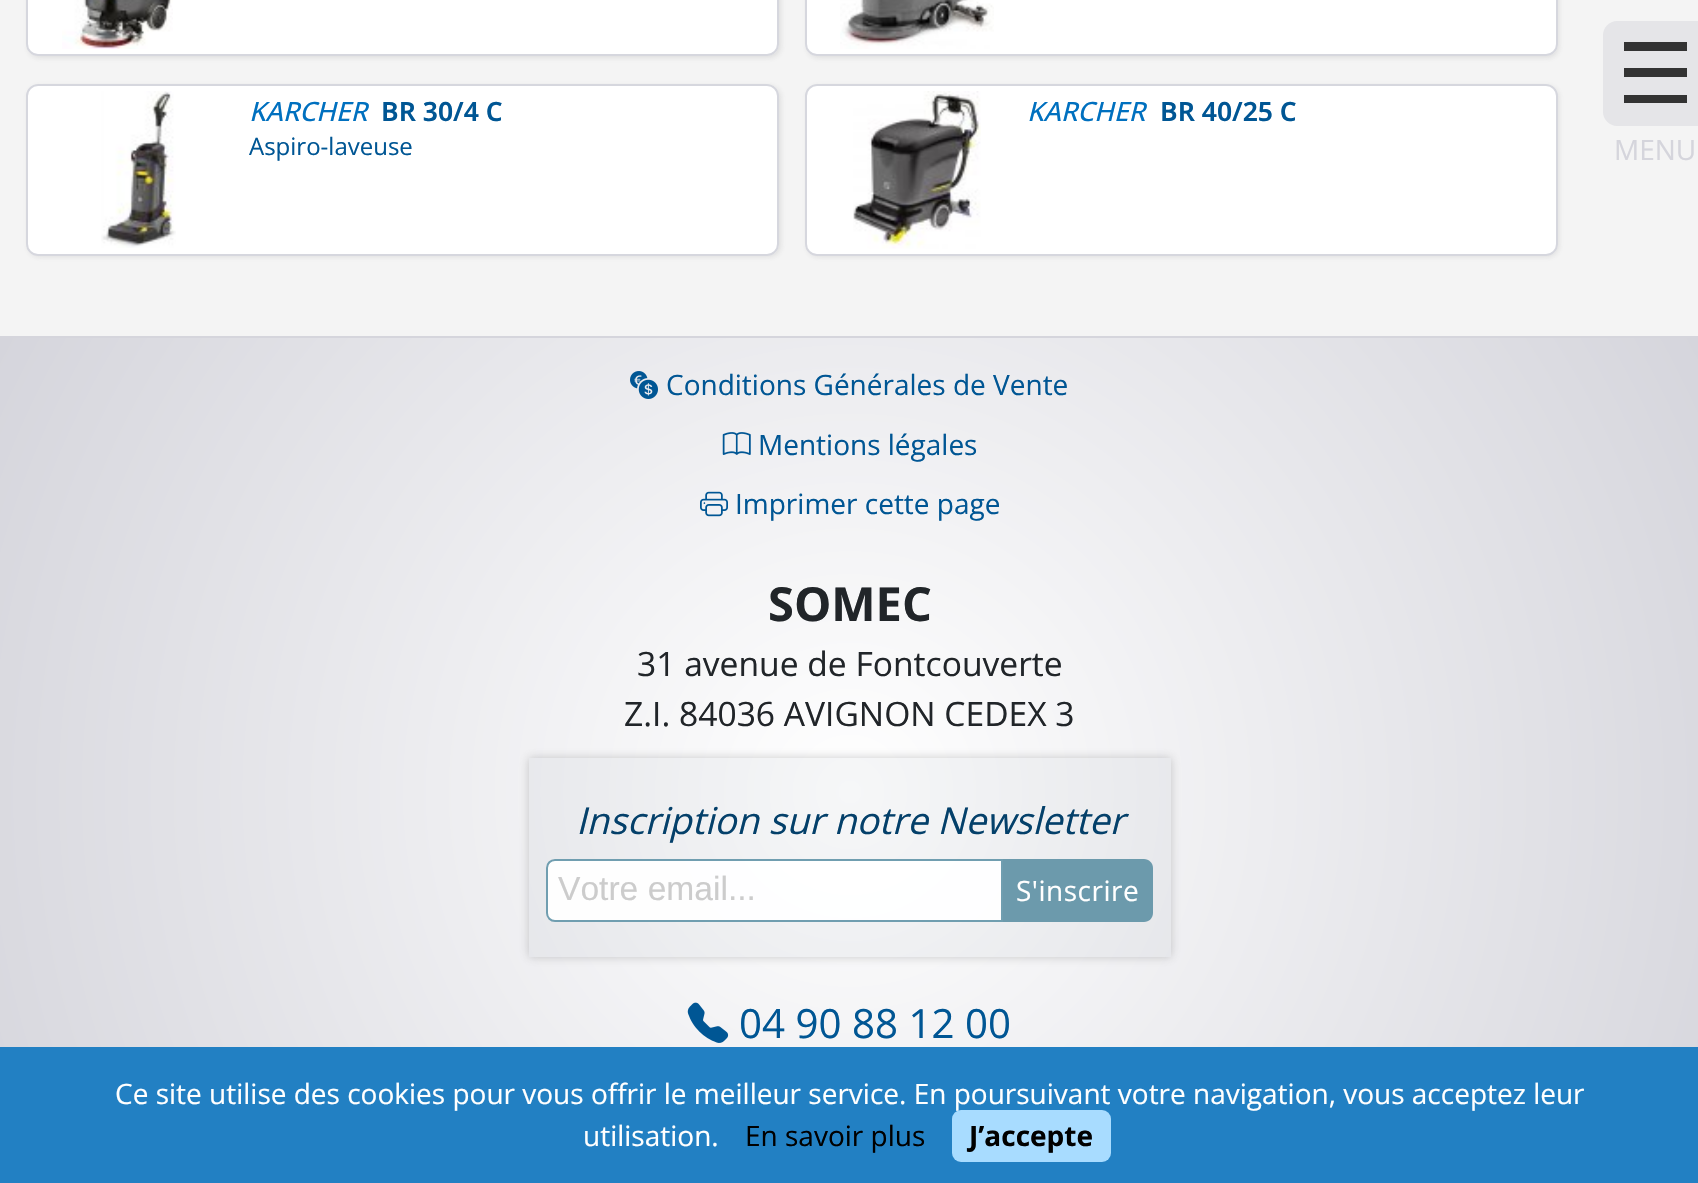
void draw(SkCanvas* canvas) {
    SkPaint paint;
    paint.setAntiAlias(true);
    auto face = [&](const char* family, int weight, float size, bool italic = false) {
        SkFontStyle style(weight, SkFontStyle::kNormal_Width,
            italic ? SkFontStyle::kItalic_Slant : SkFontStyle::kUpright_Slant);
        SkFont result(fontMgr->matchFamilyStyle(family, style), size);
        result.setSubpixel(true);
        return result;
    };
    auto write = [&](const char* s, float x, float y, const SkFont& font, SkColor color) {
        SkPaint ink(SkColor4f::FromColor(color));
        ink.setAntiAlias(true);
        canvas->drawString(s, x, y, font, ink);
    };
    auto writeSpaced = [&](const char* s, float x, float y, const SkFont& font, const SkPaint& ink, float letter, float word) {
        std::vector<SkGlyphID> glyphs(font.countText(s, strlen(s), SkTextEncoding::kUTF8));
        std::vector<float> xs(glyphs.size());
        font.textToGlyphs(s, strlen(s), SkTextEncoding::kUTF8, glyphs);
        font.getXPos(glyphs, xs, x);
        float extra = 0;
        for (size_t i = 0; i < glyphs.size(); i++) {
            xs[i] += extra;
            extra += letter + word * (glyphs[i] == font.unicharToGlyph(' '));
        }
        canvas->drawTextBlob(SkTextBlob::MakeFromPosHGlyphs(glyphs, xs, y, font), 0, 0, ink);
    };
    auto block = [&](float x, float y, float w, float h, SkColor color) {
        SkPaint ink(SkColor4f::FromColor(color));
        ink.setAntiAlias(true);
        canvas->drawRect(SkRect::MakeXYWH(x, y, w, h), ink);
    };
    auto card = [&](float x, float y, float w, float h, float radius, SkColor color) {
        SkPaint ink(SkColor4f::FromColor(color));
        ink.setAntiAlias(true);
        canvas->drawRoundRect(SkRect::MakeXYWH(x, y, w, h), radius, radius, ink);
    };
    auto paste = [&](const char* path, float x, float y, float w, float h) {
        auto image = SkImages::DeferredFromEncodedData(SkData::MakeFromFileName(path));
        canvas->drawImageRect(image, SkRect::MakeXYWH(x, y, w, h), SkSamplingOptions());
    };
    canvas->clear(SkColorSetRGB(244, 244, 244));
    paint.setColor(SkColorSetARGB(38, 100, 100, 100));
    paint.setMaskFilter(SkMaskFilter::MakeBlur(kNormal_SkBlurStyle, 2.5f));
    canvas->drawRoundRect(SkRect::MakeXYWH(28, -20, 753, 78), 12, 12, paint);
    paint.setMaskFilter(nullptr);
    card(26, -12, 753, 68, 12, SK_ColorWHITE);
    paint.setStyle(SkPaint::kStroke_Style);
    paint.setStrokeWidth(2);
    paint.setColor(SkColorSetARGB(153, 187, 189, 200));
    canvas->drawRoundRect(SkRect::MakeXYWH(27, -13, 751, 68), 11, 11, paint);
    paste("pic1.png", 62, 0, 111, 49);
    paint.setStyle(SkPaint::kFill_Style);
    paint.setColor(SkColorSetARGB(38, 100, 100, 100));
    paint.setMaskFilter(SkMaskFilter::MakeBlur(kNormal_SkBlurStyle, 2.5f));
    canvas->drawRoundRect(SkRect::MakeXYWH(807, -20, 752, 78), 12, 12, paint);
    paint.setMaskFilter(nullptr);
    card(805, -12, 753, 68, 12, SK_ColorWHITE);
    paint.setStyle(SkPaint::kStroke_Style);
    paint.setColor(SkColorSetARGB(153, 187, 189, 200));
    canvas->drawRoundRect(SkRect::MakeXYWH(806, -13, 751, 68), 11, 11, paint);
    paste("pic2.png", 840, 0, 154, 49);
    paint.setStyle(SkPaint::kFill_Style);
    paint.setColor(SkColorSetARGB(38, 100, 100, 100));
    paint.setMaskFilter(SkMaskFilter::MakeBlur(kNormal_SkBlurStyle, 2.5f));
    canvas->drawRoundRect(SkRect::MakeXYWH(28, 86, 753, 171), 12, 12, paint);
    paint.setMaskFilter(nullptr);
    card(26, 84, 753, 172, 12, SK_ColorWHITE);
    paint.setStyle(SkPaint::kStroke_Style);
    paint.setColor(SkColorSetARGB(153, 187, 189, 200));
    canvas->drawRoundRect(SkRect::MakeXYWH(27, 85, 751, 170), 11, 11, paint);
    paste("pic3.png", 101, 91, 75, 157);
    auto kFont1 = face("Open Sans", 500, 26.5f, true);
    write("KARCHER", 249, 121, kFont1, SkColorSetRGB(0, 112, 191));
    auto kFont2 = face("Open Sans", 600, 26.5f);
    write("BR 30/4 C", 381, 121, kFont2, SkColorSetRGB(0, 86, 148));
    auto kFont3 = face("Open Sans", 400, 24);
    write("Aspiro-laveuse", 249, 155, kFont3, SkColorSetRGB(0, 86, 148));
    paint.setStyle(SkPaint::kFill_Style);
    paint.setColor(SkColorSetARGB(38, 100, 100, 100));
    paint.setMaskFilter(SkMaskFilter::MakeBlur(kNormal_SkBlurStyle, 2.5f));
    canvas->drawRoundRect(SkRect::MakeXYWH(807, 86, 752, 171), 12, 12, paint);
    paint.setMaskFilter(nullptr);
    card(805, 84, 753, 172, 12, SK_ColorWHITE);
    paint.setStyle(SkPaint::kStroke_Style);
    paint.setColor(SkColorSetARGB(153, 187, 189, 200));
    canvas->drawRoundRect(SkRect::MakeXYWH(806, 85, 751, 170), 11, 11, paint);
    paste("pic4.png", 853, 91, 128, 158);
    write("KARCHER", 1027, 121, kFont1, SkColorSetRGB(0, 112, 191));
    write("BR 40/25 C", 1160, 121, kFont2, SkColorSetRGB(0, 86, 148));
    paint.setStyle(SkPaint::kFill_Style);
    {
        const SkColor colors[] = {SK_ColorWHITE, SkColorSetRGB(213, 213, 220)};
        const float stops[] = {0, 1};
        paint.setShader(SkGradientShader::MakeRadial({850, 792}, 963, colors, stops, 2, SkTileMode::kClamp));
        paint.setAlpha(255);
    }
    canvas->drawRect(SkRect::MakeXYWH(0, 338, 1698, 709), paint);
    block(0, 336, 1698, 2, SkColorSetRGB(213, 213, 220));
    paste("pic5.png", 630, 371, 28, 28);
    auto kFont4 = face("Open Sans", 400, 28);
    write("Conditions Générales de Vente", 666, 395, kFont4, SkColorSetRGB(0, 86, 148));
    paste("pic6.png", 722, 432, 29, 23);
    write("Mentions légales", 758, 455, kFont4, SkColorSetRGB(0, 86, 148));
    paste("pic7.png", 700, 491, 28, 26);
    write("Imprimer cette page", 735, 514, kFont4, SkColorSetRGB(0, 86, 148));
    auto kFont5 = face("Open Sans", 700, 47);
    write("SOMEC", 768, 621, kFont5, SkColorSetRGB(33, 37, 41));
    auto kFont6 = face("Open Sans", 400, 33.6f);
    write("31 avenue de Fontcouverte", 637, 676, kFont6, SkColorSetRGB(33, 37, 41));
    write("Z.I. 84036 AVIGNON CEDEX 3", 624, 726, kFont6, SkColorSetRGB(33, 37, 41));
    canvas->save();
    canvas->clipPath(SkPathBuilder(SkPathFillType::kEvenOdd).moveTo(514, 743).lineTo(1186, 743).lineTo(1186, 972).lineTo(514, 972).close().moveTo(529, 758).lineTo(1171, 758).lineTo(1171, 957).lineTo(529, 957).close().detach(), true);
    paint.setShader(nullptr);
    paint.setColor(SkColorSetARGB(84, 102, 102, 102));
    paint.setMaskFilter(SkMaskFilter::MakeBlur(kNormal_SkBlurStyle, 4.5f));
    canvas->drawRect(SkRect::MakeXYWH(529, 758, 642, 199), paint);
    paint.setMaskFilter(nullptr);
    canvas->restore();
    block(529, 758, 642, 199, SkColorSetARGB(10, 24, 47, 64));
    auto kFont7 = face("Open Sans", 400, 37, true);
    write("Inscription sur notre Newsletter", 576, 834, kFont7, SkColorSetRGB(4, 64, 106));
    paint.setColor(SkColorSetARGB(237, 255, 255, 255));
    canvas->drawPath(SkPathBuilder().moveTo(555, 860).lineTo(1002, 860).lineTo(1002, 921).lineTo(555, 921).cubicTo(550.5f, 921, 547, 917.5f, 547, 913).lineTo(547, 868).cubicTo(547, 863.5f, 550.5f, 860, 555, 860).close().detach(), paint);
    paint.setStyle(SkPaint::kStroke_Style);
    paint.setColor(SkColorSetRGB(112, 158, 176));
    canvas->drawPath(SkPathBuilder().moveTo(555, 860).lineTo(1002, 860).lineTo(1002, 921).lineTo(555, 921).cubicTo(550.5f, 921, 547, 917.5f, 547, 913).lineTo(547, 868).cubicTo(547, 863.5f, 550.5f, 860, 555, 860).close().detach(), paint);
    auto kFont8 = face("Liberation Sans", 400, 33.6f);
    write("Votre email...", 558, 900, kFont8, SkColorSetRGB(204, 204, 204));
    paint.setStyle(SkPaint::kFill_Style);
    paint.setColor(SkColorSetRGB(108, 154, 172));
    canvas->drawPath(SkPathBuilder().moveTo(1003, 859).lineTo(1144, 859).cubicTo(1149, 859, 1153, 863, 1153, 868).lineTo(1153, 913).cubicTo(1153, 918, 1149, 922, 1144, 922).lineTo(1003, 922).close().detach(), paint);
    paint.setColor(SK_ColorWHITE);
    writeSpaced("S'inscrire", 1016, 901, kFont4, paint, 0.5f, 0);
    paste("pic8.png", 687, 1002, 42, 41);
    auto kFont9 = face("Open Sans", 400, 40.25f);
    write("04 90 88 12 00", 739, 1038, kFont9, SkColorSetRGB(0, 86, 148));
    paint.setColor(SkColorSetRGB(229, 229, 232));
    canvas->drawPath(SkPathBuilder().moveTo(1617, 21).lineTo(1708, 21).lineTo(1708, 126).lineTo(1617, 126).cubicTo(1609.5f, 126, 1603, 119.5f, 1603, 112).lineTo(1603, 35).cubicTo(1603, 27.5f, 1609.5f, 21, 1617, 21).close().detach(), paint);
    block(1624, 68, 63, 9, SkColorSetRGB(51, 51, 51));
    block(1624, 42, 63, 9, SkColorSetRGB(51, 51, 51));
    block(1624, 95, 63, 8, SkColorSetRGB(51, 51, 51));
    write("MENU", 1614, 160, kFont4, SkColorSetRGB(213, 213, 220));
    block(0, 1047, 1698, 136, SkColorSetRGB(34, 128, 195));
    write("Ce site utilise des cookies pour vous offrir le meilleur service. En poursuivant votre navigation, vous acceptez leur", 115, 1104, kFont4, SK_ColorWHITE);
    write("utilisation.", 583, 1146, kFont4, SK_ColorWHITE);
    write("En savoir plus", 745, 1146, kFont4, SK_ColorBLACK);
    card(952, 1110, 159, 52, 9, SkColorSetRGB(168, 220, 255));
    auto kFont10 = face("Open Sans", 700, 28);
    write("J’accepte", 969, 1146, kFont10, SK_ColorBLACK);
}
